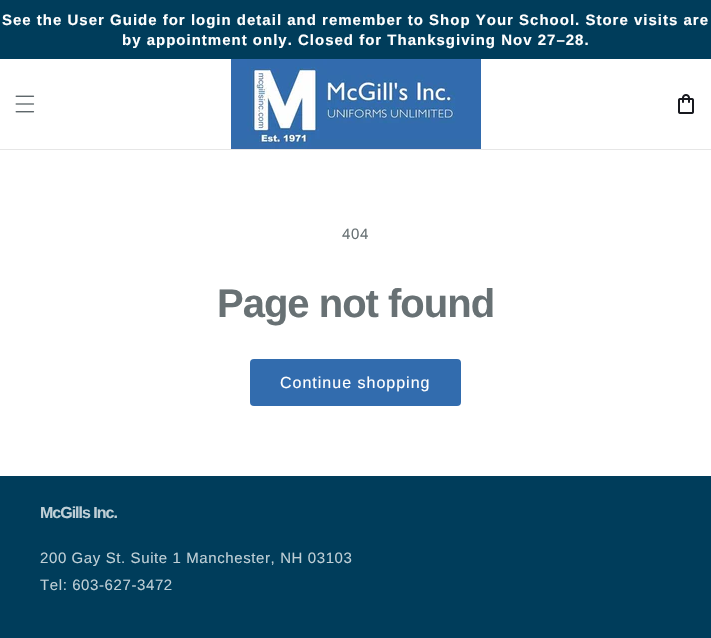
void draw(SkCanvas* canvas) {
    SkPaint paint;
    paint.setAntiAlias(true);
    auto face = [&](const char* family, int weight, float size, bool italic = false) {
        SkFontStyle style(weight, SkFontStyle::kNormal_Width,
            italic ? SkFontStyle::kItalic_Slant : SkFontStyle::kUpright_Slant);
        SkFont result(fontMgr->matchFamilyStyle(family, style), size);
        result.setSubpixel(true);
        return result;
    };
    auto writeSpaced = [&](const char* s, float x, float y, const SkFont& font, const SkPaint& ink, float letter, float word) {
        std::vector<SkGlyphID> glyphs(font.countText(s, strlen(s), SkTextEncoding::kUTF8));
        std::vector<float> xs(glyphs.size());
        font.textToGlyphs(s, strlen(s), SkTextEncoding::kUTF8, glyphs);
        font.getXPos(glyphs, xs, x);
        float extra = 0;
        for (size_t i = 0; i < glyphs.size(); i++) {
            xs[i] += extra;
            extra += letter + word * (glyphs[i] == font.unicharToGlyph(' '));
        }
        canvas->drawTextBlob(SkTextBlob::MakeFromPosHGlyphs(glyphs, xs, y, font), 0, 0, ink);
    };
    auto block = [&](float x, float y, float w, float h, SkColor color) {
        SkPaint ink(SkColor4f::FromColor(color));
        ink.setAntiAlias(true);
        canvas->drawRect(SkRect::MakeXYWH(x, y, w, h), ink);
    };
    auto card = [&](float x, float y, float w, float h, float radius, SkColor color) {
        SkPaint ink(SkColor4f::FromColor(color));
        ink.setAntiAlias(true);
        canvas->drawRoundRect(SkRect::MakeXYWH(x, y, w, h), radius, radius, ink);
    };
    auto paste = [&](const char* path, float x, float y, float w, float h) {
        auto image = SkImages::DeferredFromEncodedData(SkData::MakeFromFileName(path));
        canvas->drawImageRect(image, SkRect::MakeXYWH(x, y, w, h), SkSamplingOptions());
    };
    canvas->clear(SK_ColorWHITE);
    block(0, 0, 711, 59, SkColorSetRGB(0, 61, 91));
    auto kFont1 = face("Liberation Sans", 700, 15);
    paint.setColor(SK_ColorWHITE);
    writeSpaced("See the User Guide for login detail and remember to Shop Your School. Store visits are", 2, 25, kFont1, paint, 1, 0);
    writeSpaced("by appointment only. Closed for Thanksgiving Nov 27–28.", 122, 45, kFont1, paint, 1, 0);
    block(0, 149, 711, 1, SkColorSetRGB(230, 230, 230));
    paste("pic1.png", 15, 95, 20, 18);
    paste("pic2.png", 231, 59, 250, 90);
    paste("pic3.png", 678, 94, 16, 20);
    auto kFont2 = face("Liberation Sans", 400, 15);
    paint.setColor(SkColorSetRGB(104, 113, 116));
    writeSpaced("404", 342, 239, kFont2, paint, 0.6f, 0);
    auto kFont3 = face("Liberation Sans", 700, 40);
    writeSpaced("Page not found", 217, 317, kFont3, paint, -1, 0);
    card(250, 359, 211, 47, 4, SkColorSetRGB(50, 108, 174));
    auto kFont4 = face("Liberation Sans", 400, 16);
    paint.setColor(SK_ColorWHITE);
    writeSpaced("Continue shopping", 280, 388, kFont4, paint, 1, 0);
    block(0, 476, 711, 162, SkColorSetRGB(0, 61, 91));
    auto kFont5 = face("Liberation Sans", 700, 16);
    paint.setColor(SkColorSetRGB(191, 207, 214));
    writeSpaced("McGills Inc.", 40, 518, kFont5, paint, -1, 0);
    writeSpaced("200 Gay St. Suite 1 Manchester, NH 03103", 40, 563, kFont2, paint, 0.6f, 0);
    writeSpaced("Tel: 603-627-3472", 40, 590, kFont2, paint, 0.6f, 0);
}
